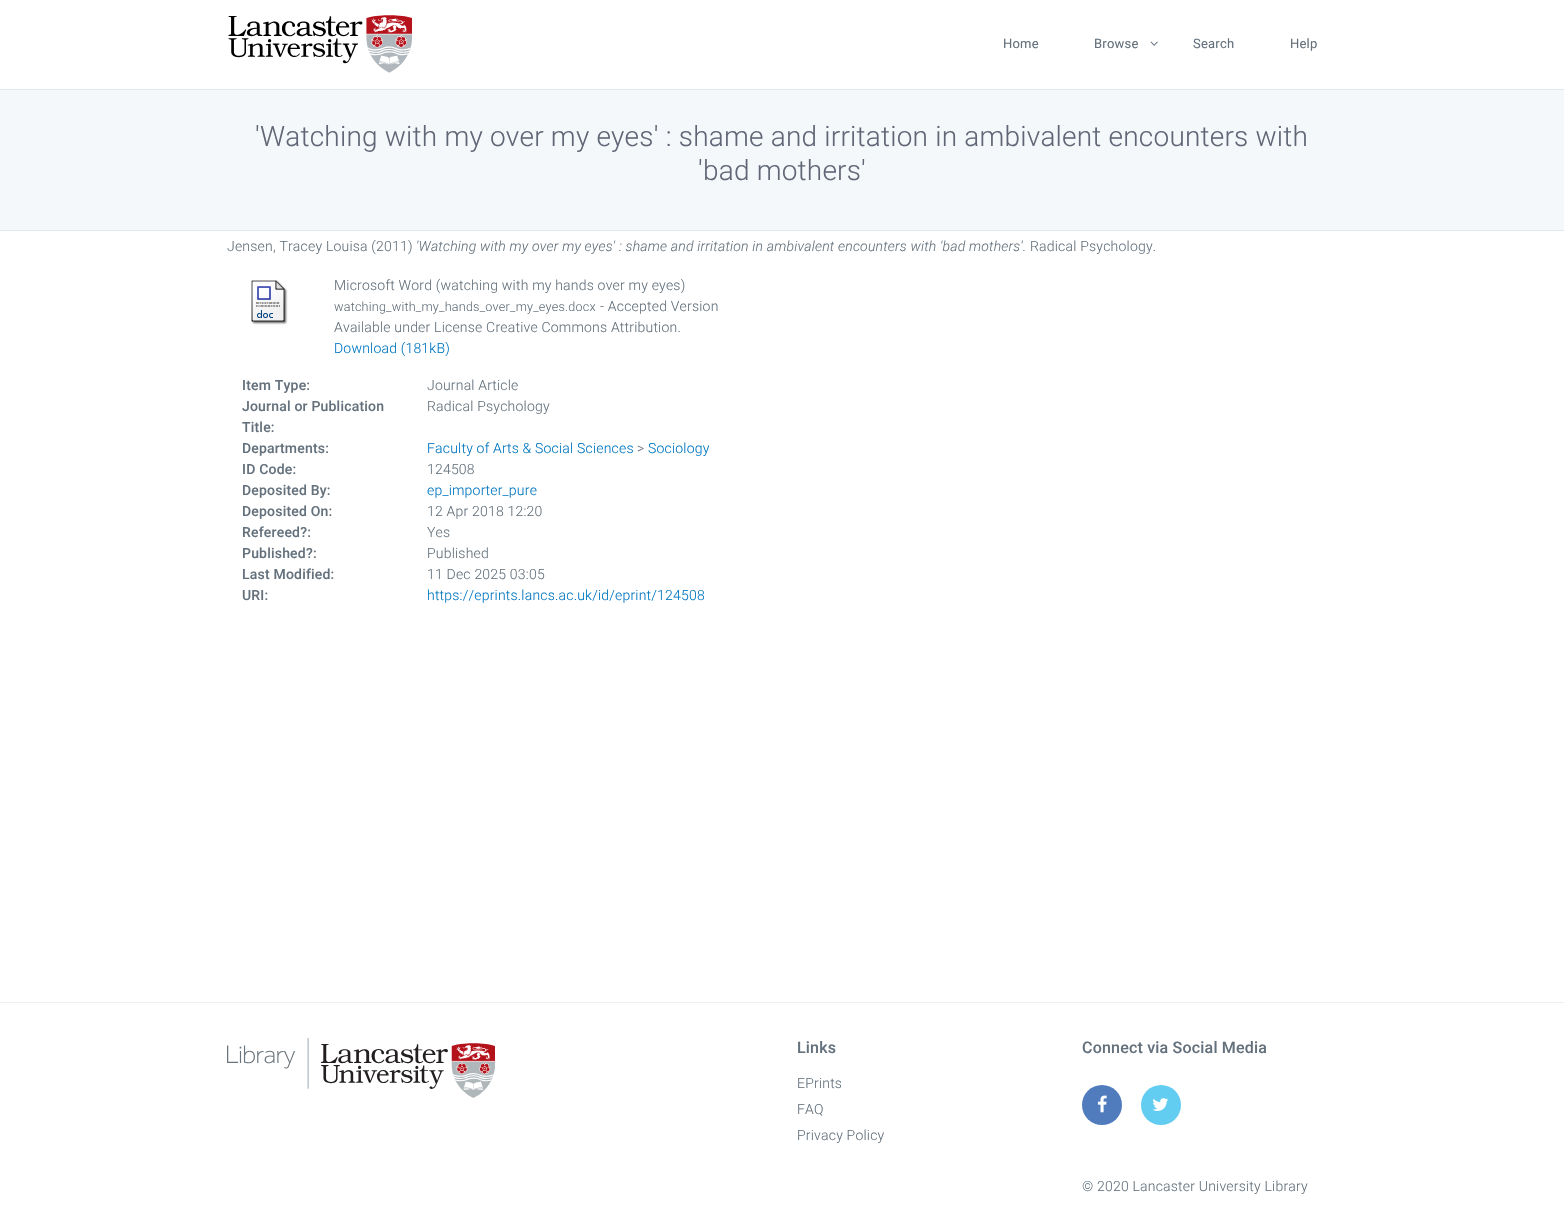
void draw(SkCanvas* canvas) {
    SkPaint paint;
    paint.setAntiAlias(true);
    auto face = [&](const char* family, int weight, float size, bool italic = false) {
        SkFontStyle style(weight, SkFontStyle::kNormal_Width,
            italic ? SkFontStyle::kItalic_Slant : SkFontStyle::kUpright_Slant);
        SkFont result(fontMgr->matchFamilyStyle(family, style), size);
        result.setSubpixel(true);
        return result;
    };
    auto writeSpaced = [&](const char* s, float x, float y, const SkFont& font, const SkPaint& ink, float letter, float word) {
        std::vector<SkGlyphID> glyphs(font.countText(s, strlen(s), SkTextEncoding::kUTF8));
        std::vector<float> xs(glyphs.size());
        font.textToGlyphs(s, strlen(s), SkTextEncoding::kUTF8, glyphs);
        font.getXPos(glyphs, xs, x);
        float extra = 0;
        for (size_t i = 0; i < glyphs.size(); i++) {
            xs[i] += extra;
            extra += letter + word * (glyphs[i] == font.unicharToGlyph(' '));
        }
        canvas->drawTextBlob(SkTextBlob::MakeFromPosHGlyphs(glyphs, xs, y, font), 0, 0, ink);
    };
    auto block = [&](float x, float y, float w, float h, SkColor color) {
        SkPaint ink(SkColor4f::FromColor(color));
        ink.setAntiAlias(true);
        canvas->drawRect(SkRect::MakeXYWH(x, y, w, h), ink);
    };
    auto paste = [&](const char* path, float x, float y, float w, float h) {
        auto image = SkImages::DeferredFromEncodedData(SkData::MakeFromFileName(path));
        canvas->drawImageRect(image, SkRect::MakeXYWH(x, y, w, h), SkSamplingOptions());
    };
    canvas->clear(SK_ColorWHITE);
    paste("pic1.png", 228, 15, 185, 58);
    auto kFont1 = face("Roboto", 400, 13);
    paint.setColor(SkColorSetRGB(100, 113, 124));
    writeSpaced("Home", 1003, 48, kFont1, paint, 0.2f, 0);
    writeSpaced("Browse", 1094, 48, kFont1, paint, 0.2f, 0);
    paste("pic2.png", 1150, 41, 8, 5);
    writeSpaced("Search", 1193, 48, kFont1, paint, 0.2f, 0);
    writeSpaced("Help", 1290, 48, kFont1, paint, 0.2f, 0);
    block(0, 90, 1564, 140, SkColorSetRGB(245, 248, 250));
    block(0, 89, 1564, 1, SkColorSetRGB(225, 232, 238));
    block(0, 230, 1564, 1, SkColorSetRGB(225, 232, 238));
    auto kFont2 = face("Roboto", 300, 28);
    paint.setColor(SkColorSetRGB(96, 102, 118));
    writeSpaced("'Watching with my over my eyes' : shame and irritation in ambivalent encounters with", 255, 146, kFont2, paint, 0.2f, 0);
    writeSpaced("'bad mothers'", 698, 180, kFont2, paint, 0.2f, 0);
    auto kFont3 = face("Roboto", 300, 14);
    paint.setColor(SkColorSetRGB(100, 113, 124));
    writeSpaced("Jensen, Tracey Louisa (2011)", 227, 251, kFont3, paint, 0.2f, 0);
    auto kFont4 = face("Roboto", 300, 14, true);
    writeSpaced("'Watching with my over my eyes' : shame and irritation in ambivalent encounters with 'bad mothers'.", 416, 251, kFont4, paint, 0.2f, 0);
    writeSpaced("Radical Psychology.", 1030, 251, kFont3, paint, 0.2f, 0);
    paste("pic3.png", 251, 280, 37, 45);
    writeSpaced("Microsoft Word (watching with my hands over my eyes)", 334, 290, kFont3, paint, 0.2f, 0);
    auto kFont5 = face("Roboto", 300, 12.6f);
    writeSpaced("watching_with_my_hands_over_my_eyes.docx", 334, 311, kFont5, paint, 0.2f, 0);
    writeSpaced("- Accepted Version", 600, 311, kFont3, paint, 0.2f, 0);
    writeSpaced("Available under License Creative Commons Attribution.", 334, 332, kFont3, paint, 0.2f, 0);
    paint.setColor(SkColorSetRGB(0, 118, 193));
    writeSpaced("Download (181kB)", 334, 353, kFont3, paint, 0.2f, 0);
    auto kFont6 = face("Roboto", 500, 14);
    paint.setColor(SkColorSetRGB(100, 113, 124));
    writeSpaced("Item Type:", 242, 390, kFont6, paint, 0.2f, 0);
    writeSpaced("Journal Article", 427, 390, kFont3, paint, 0.2f, 0);
    writeSpaced("Journal or Publication", 242, 411, kFont6, paint, 0.2f, 0);
    writeSpaced("Title:", 242, 432, kFont6, paint, 0.2f, 0);
    writeSpaced("Radical Psychology", 427, 411, kFont3, paint, 0.2f, 0);
    writeSpaced("Departments:", 242, 453, kFont6, paint, 0.2f, 0);
    paint.setColor(SkColorSetRGB(0, 118, 193));
    writeSpaced("Faculty of Arts & Social Sciences", 427, 453, kFont3, paint, 0.2f, 0);
    paint.setColor(SkColorSetRGB(100, 113, 124));
    writeSpaced(">", 637, 453, kFont3, paint, 0.2f, 0);
    paint.setColor(SkColorSetRGB(0, 118, 193));
    writeSpaced("Sociology", 648, 453, kFont3, paint, 0.2f, 0);
    paint.setColor(SkColorSetRGB(100, 113, 124));
    writeSpaced("ID Code:", 242, 474, kFont6, paint, 0.2f, 0);
    writeSpaced("124508", 427, 474, kFont3, paint, 0.2f, 0);
    writeSpaced("Deposited By:", 242, 495, kFont6, paint, 0.2f, 0);
    paint.setColor(SkColorSetRGB(0, 118, 193));
    writeSpaced("ep_importer_pure", 427, 495, kFont3, paint, 0.2f, 0);
    paint.setColor(SkColorSetRGB(100, 113, 124));
    writeSpaced("Deposited On:", 242, 516, kFont6, paint, 0.2f, 0);
    writeSpaced("12 Apr 2018 12:20", 427, 516, kFont3, paint, 0.2f, 0);
    writeSpaced("Refereed?:", 242, 537, kFont6, paint, 0.2f, 0);
    writeSpaced("Yes", 427, 537, kFont3, paint, 0.2f, 0);
    writeSpaced("Published?:", 242, 558, kFont6, paint, 0.2f, 0);
    writeSpaced("Published", 427, 558, kFont3, paint, 0.2f, 0);
    writeSpaced("Last Modified:", 242, 579, kFont6, paint, 0.2f, 0);
    writeSpaced("11 Dec 2025 03:05", 427, 579, kFont3, paint, 0.2f, 0);
    writeSpaced("URI:", 242, 600, kFont6, paint, 0.2f, 0);
    paint.setColor(SkColorSetRGB(0, 118, 193));
    writeSpaced("https://eprints.lancs.ac.uk/id/eprint/124508", 427, 600, kFont3, paint, 0.2f, 0);
    block(0, 1002, 1564, 1, SkColorSetRGB(238, 238, 238));
    paste("pic4.png", 227, 1038, 268, 60);
    auto kFont7 = face("Roboto", 500, 16);
    paint.setColor(SkColorSetRGB(100, 113, 124));
    writeSpaced("Links", 797, 1053, kFont7, paint, 0.2f, 0);
    writeSpaced("EPrints", 797, 1088, kFont3, paint, 0.2f, 0);
    writeSpaced("FAQ", 797, 1114, kFont3, paint, 0.2f, 0);
    writeSpaced("Privacy Policy", 797, 1140, kFont3, paint, 0.2f, 0);
    writeSpaced("Connect via Social Media", 1082, 1053, kFont7, paint, 0.2f, 0);
    paint.setColor(SkColorSetRGB(80, 124, 190));
    canvas->drawCircle(1102, 1105, 20, paint);
    paste("pic5.png", 1097, 1095, 10, 18);
    paint.setColor(SkColorSetRGB(99, 205, 241));
    canvas->drawCircle(1161, 1105, 20, paint);
    paste("pic6.png", 1152, 1098, 17, 13);
    paint.setColor(SkColorSetRGB(100, 113, 124));
    writeSpaced("© 2020 Lancaster University Library", 1082, 1191, kFont3, paint, 0.2f, 0);
}
